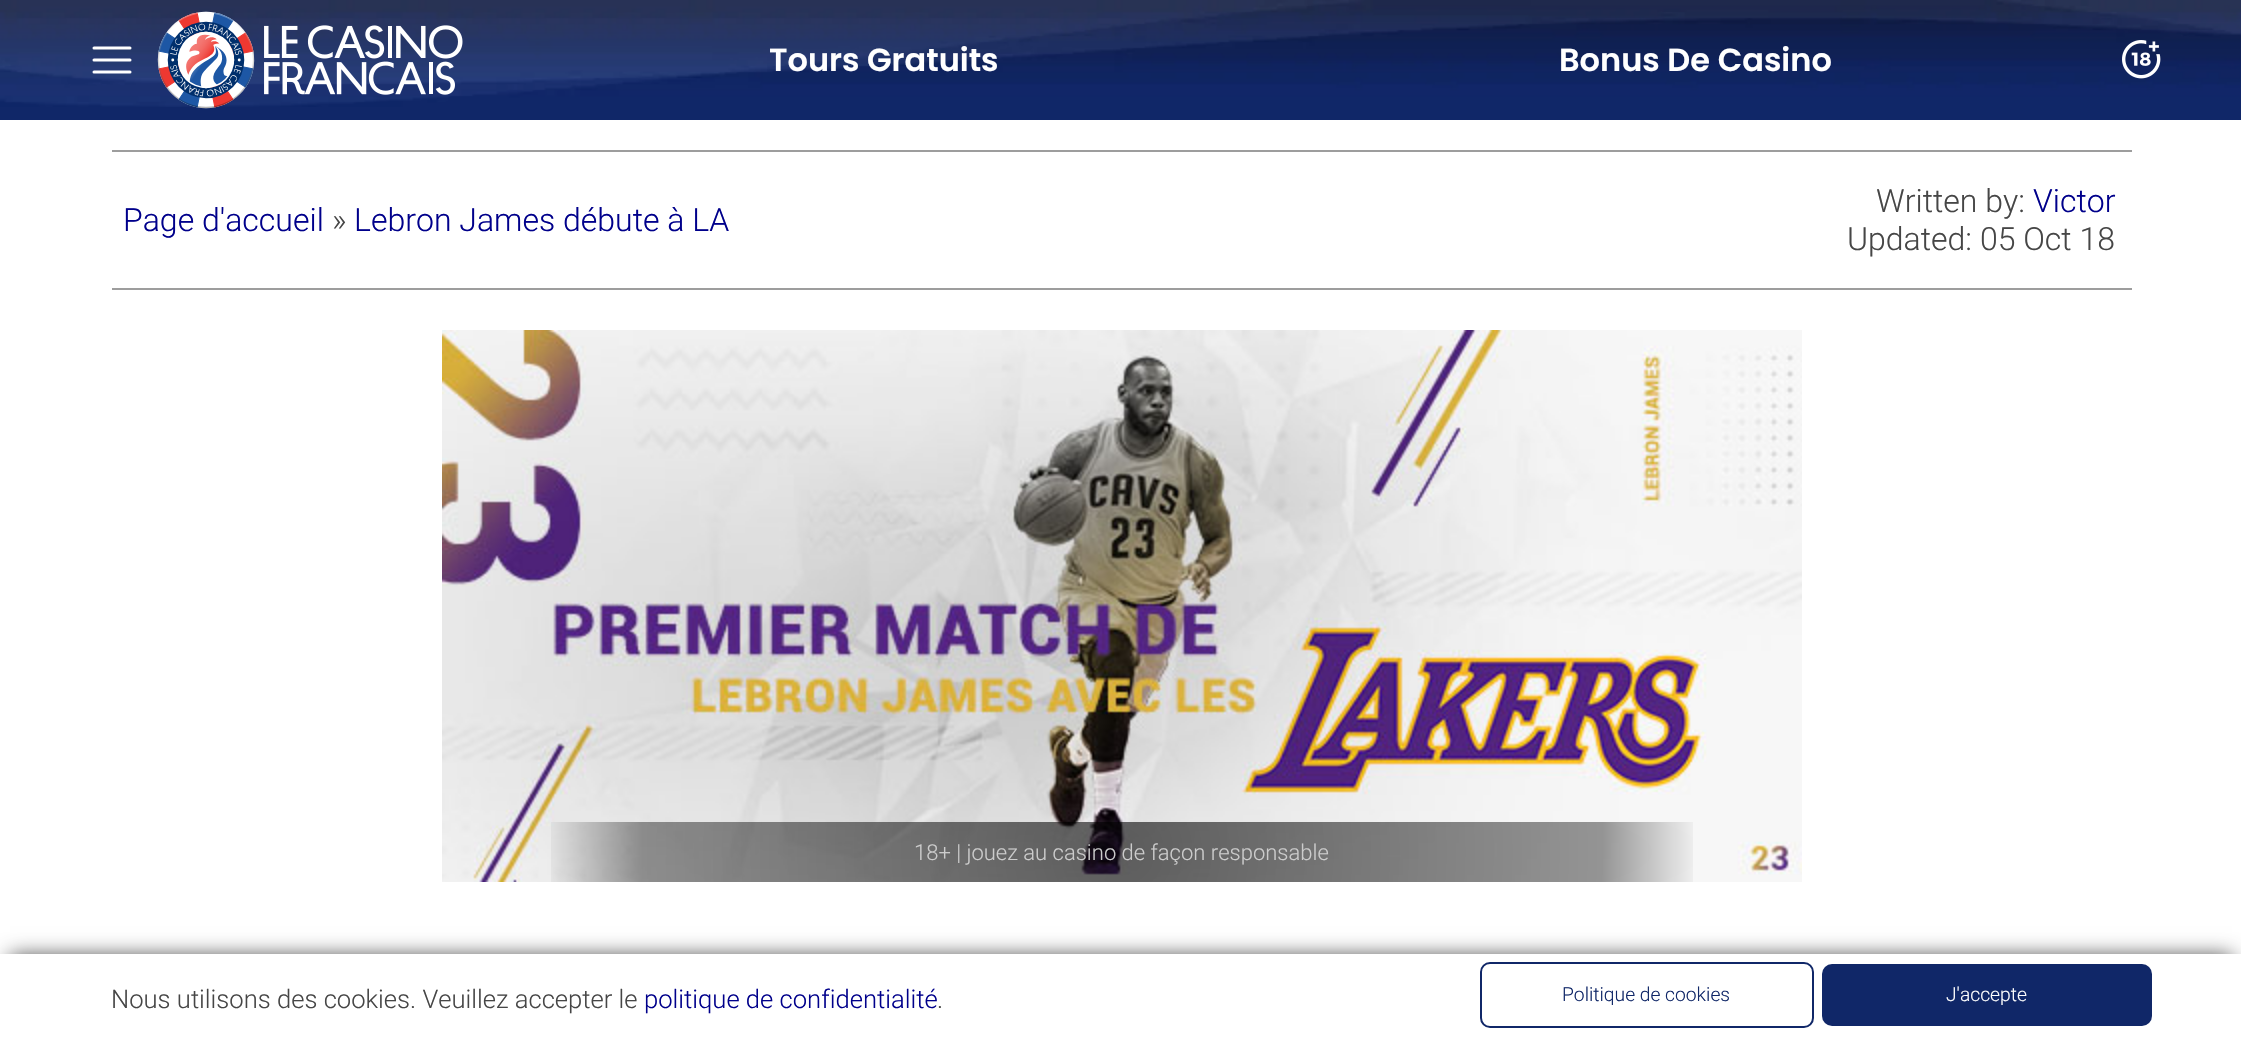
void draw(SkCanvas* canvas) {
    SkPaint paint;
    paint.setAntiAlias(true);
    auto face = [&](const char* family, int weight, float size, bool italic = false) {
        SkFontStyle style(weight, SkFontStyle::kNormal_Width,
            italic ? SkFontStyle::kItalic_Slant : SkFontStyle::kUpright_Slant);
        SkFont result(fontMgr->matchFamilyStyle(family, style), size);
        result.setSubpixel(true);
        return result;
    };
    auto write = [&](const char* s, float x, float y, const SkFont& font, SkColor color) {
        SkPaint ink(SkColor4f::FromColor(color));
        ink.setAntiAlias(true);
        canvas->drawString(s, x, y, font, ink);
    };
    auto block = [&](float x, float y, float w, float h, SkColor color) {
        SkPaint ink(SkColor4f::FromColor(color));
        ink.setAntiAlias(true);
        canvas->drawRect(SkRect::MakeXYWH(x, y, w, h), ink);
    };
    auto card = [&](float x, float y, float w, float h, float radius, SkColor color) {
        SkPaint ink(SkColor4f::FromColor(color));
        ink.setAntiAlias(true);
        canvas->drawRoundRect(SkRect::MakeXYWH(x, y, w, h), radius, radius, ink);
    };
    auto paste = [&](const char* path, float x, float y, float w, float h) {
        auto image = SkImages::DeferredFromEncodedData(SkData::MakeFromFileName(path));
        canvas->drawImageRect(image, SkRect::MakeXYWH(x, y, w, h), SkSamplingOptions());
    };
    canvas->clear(SkColorSetRGB(16, 39, 104));
    paste("pic1.png", 0, 0, 2241, 107);
    paint.setStyle(SkPaint::kStroke_Style);
    paint.setStrokeWidth(3);
    paint.setStrokeCap(SkPaint::kRound_Cap);
    paint.setColor(SK_ColorWHITE);
    canvas->drawPath(SkPathBuilder().moveTo(94, 48).lineTo(130, 48).moveTo(94, 60).lineTo(130, 60).moveTo(94, 72).lineTo(130, 72).detach(), paint);
    paste("pic2.png", 157, 11, 98, 98);
    paste("pic3.png", 264, 25, 199, 70);
    auto kFont1 = face("Poppins", 600, 32);
    write("Tours Gratuits", 769, 71, kFont1, SK_ColorWHITE);
    write("Bonus De Casino", 1559, 71, kFont1, SK_ColorWHITE);
    paste("pic4.png", 2122, 40, 39, 39);
    block(0, 120, 2241, 834, SK_ColorWHITE);
    block(112, 150, 2020, 2, SkColorSetRGB(157, 157, 157));
    block(112, 288, 2020, 2, SkColorSetRGB(157, 157, 157));
    auto kFont2 = face("Roboto", 300, 32);
    write("Page d'accueil", 123, 231, kFont2, SkColorSetRGB(0, 0, 139));
    write("»", 332, 231, kFont2, SkColorSetRGB(70, 70, 70));
    write("Lebron James débute à LA", 354, 231, kFont2, SkColorSetRGB(0, 0, 139));
    write("Written by:", 1876, 212, kFont2, SkColorSetRGB(70, 70, 70));
    write("Victor", 2033, 212, kFont2, SkColorSetRGB(0, 0, 139));
    write("Updated: 05 Oct 18", 1847, 250, kFont2, SkColorSetRGB(70, 70, 70));
    paste("pic5.png", 442, 330, 1360, 552);
    paint.setStyle(SkPaint::kFill_Style);
    {
        const SkColor colors[] = {SkColorSetARGB(153, 0, 0, 0), SkColorSetARGB(102, 0, 0, 0), SkColorSetARGB(0, 0, 0, 0)};
        const float stops[] = {0, 0.48f, 0.58f};
        paint.setShader(SkGradientShader::MakeRadial({1122, 852}, 1000, colors, stops, 3, SkTileMode::kClamp));
        paint.setAlpha(255);
    }
    canvas->drawRect(SkRect::MakeXYWH(551, 822, 1142, 60), paint);
    auto kFont3 = face("Roboto", 300, 22);
    write("18+ | jouez au casino de façon responsable", 914, 860, kFont3, SkColorSetRGB(204, 204, 204));
    paint.setShader(nullptr);
    paint.setColor(SkColorSetARGB(191, 0, 0, 0));
    paint.setMaskFilter(SkMaskFilter::MakeBlur(kNormal_SkBlurStyle, 10));
    canvas->drawRect(SkRect::MakeXYWH(10, 956, 2222, 70), paint);
    paint.setMaskFilter(nullptr);
    block(0, 954, 2241, 90, SK_ColorWHITE);
    auto kFont4 = face("Roboto", 300, 25.6f);
    write("Nous utilisons des cookies. Veuillez accepter le", 111, 1008, kFont4, SkColorSetRGB(70, 70, 70));
    write("politique de confidentialité", 644, 1008, kFont4, SkColorSetRGB(0, 0, 139));
    write(".", 937, 1008, kFont4, SkColorSetRGB(70, 70, 70));
    paint.setStyle(SkPaint::kStroke_Style);
    paint.setStrokeWidth(2);
    paint.setStrokeCap(SkPaint::kButt_Cap);
    paint.setColor(SkColorSetRGB(16, 39, 104));
    canvas->drawRoundRect(SkRect::MakeXYWH(1481, 963, 332, 64), 9, 9, paint);
    auto kFont5 = face("Roboto", 300, 19.25f);
    write("Politique de cookies", 1562, 1001, kFont5, SkColorSetRGB(16, 39, 104));
    card(1822, 964, 330, 62, 10, SkColorSetRGB(16, 39, 104));
    write("J'accepte", 1946, 1001, kFont5, SK_ColorWHITE);
}
